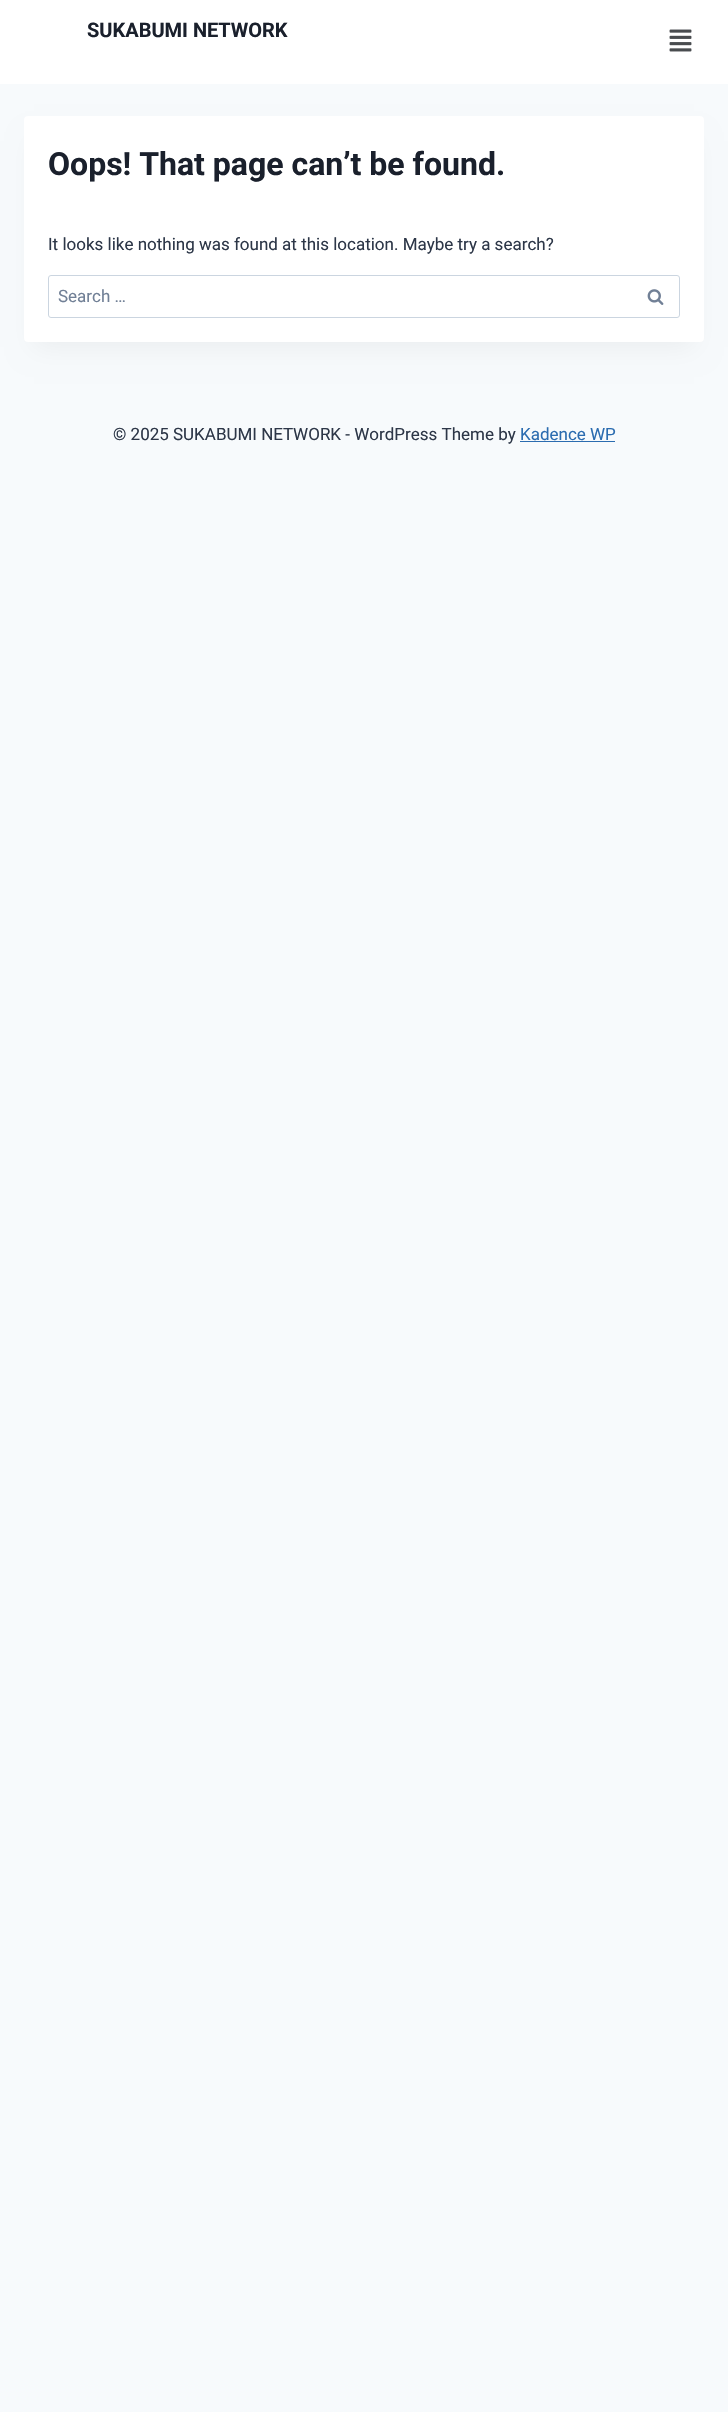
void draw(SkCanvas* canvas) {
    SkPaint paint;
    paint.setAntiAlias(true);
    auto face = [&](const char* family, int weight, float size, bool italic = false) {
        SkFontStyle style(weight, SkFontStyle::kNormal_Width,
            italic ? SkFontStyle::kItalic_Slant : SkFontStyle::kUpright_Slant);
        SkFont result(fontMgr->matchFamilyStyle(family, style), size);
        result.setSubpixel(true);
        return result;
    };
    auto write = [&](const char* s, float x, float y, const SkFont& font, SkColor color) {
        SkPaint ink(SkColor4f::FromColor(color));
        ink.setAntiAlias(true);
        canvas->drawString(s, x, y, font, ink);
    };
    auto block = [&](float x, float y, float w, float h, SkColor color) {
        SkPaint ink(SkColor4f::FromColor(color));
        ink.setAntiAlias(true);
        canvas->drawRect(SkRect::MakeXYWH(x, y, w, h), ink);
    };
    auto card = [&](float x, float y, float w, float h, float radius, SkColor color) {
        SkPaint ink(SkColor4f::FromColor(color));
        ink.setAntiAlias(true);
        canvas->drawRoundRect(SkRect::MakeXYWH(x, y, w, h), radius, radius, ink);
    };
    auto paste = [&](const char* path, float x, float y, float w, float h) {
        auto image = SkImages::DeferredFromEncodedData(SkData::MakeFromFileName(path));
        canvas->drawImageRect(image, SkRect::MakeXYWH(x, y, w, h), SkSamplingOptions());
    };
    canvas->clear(SkColorSetRGB(247, 250, 252));
    block(0, 0, 728, 84, SK_ColorWHITE);
    auto kFont1 = face("Roboto", 700, 20);
    write("SUKABUMI NETWORK", 87, 37, kFont1, SkColorSetRGB(26, 32, 44));
    paste("pic1.png", 669, 29, 23, 23);
    paint.setColor(SkColorSetARGB(13, 0, 0, 0));
    paint.setMaskFilter(SkMaskFilter::MakeBlur(kNormal_SkBlurStyle, 12.5f));
    canvas->drawRect(SkRect::MakeXYWH(34, 141, 660, 206), paint);
    paint.setMaskFilter(nullptr);
    card(24, 116, 680, 226, 4, SK_ColorWHITE);
    auto kFont2 = face("Roboto", 700, 32);
    write("Oops! That page can’t be found.", 48, 175, kFont2, SkColorSetRGB(26, 32, 44));
    auto kFont3 = face("Roboto", 400, 17);
    write("It looks like nothing was found at this location. Maybe try a search?", 48, 250, kFont3, SkColorSetRGB(45, 55, 72));
    paint.setStyle(SkPaint::kStroke_Style);
    paint.setStrokeWidth(1);
    paint.setColor(SkColorSetRGB(203, 213, 224));
    canvas->drawRoundRect(SkRect::MakeXYWH(48.5f, 275.5f, 631, 42), 2.5f, 2.5f, paint);
    write("Search …", 58, 302, kFont3, SkColorSetRGB(113, 128, 150));
    paste("pic2.png", 647, 289, 17, 16);
    write("© 2025 SUKABUMI NETWORK - WordPress Theme by", 113, 440, kFont3, SkColorSetRGB(45, 55, 72));
    write("Kadence WP", 520, 440, kFont3, SkColorSetRGB(43, 108, 176));
    block(520, 441, 95, 1, SkColorSetRGB(43, 108, 176));
}
